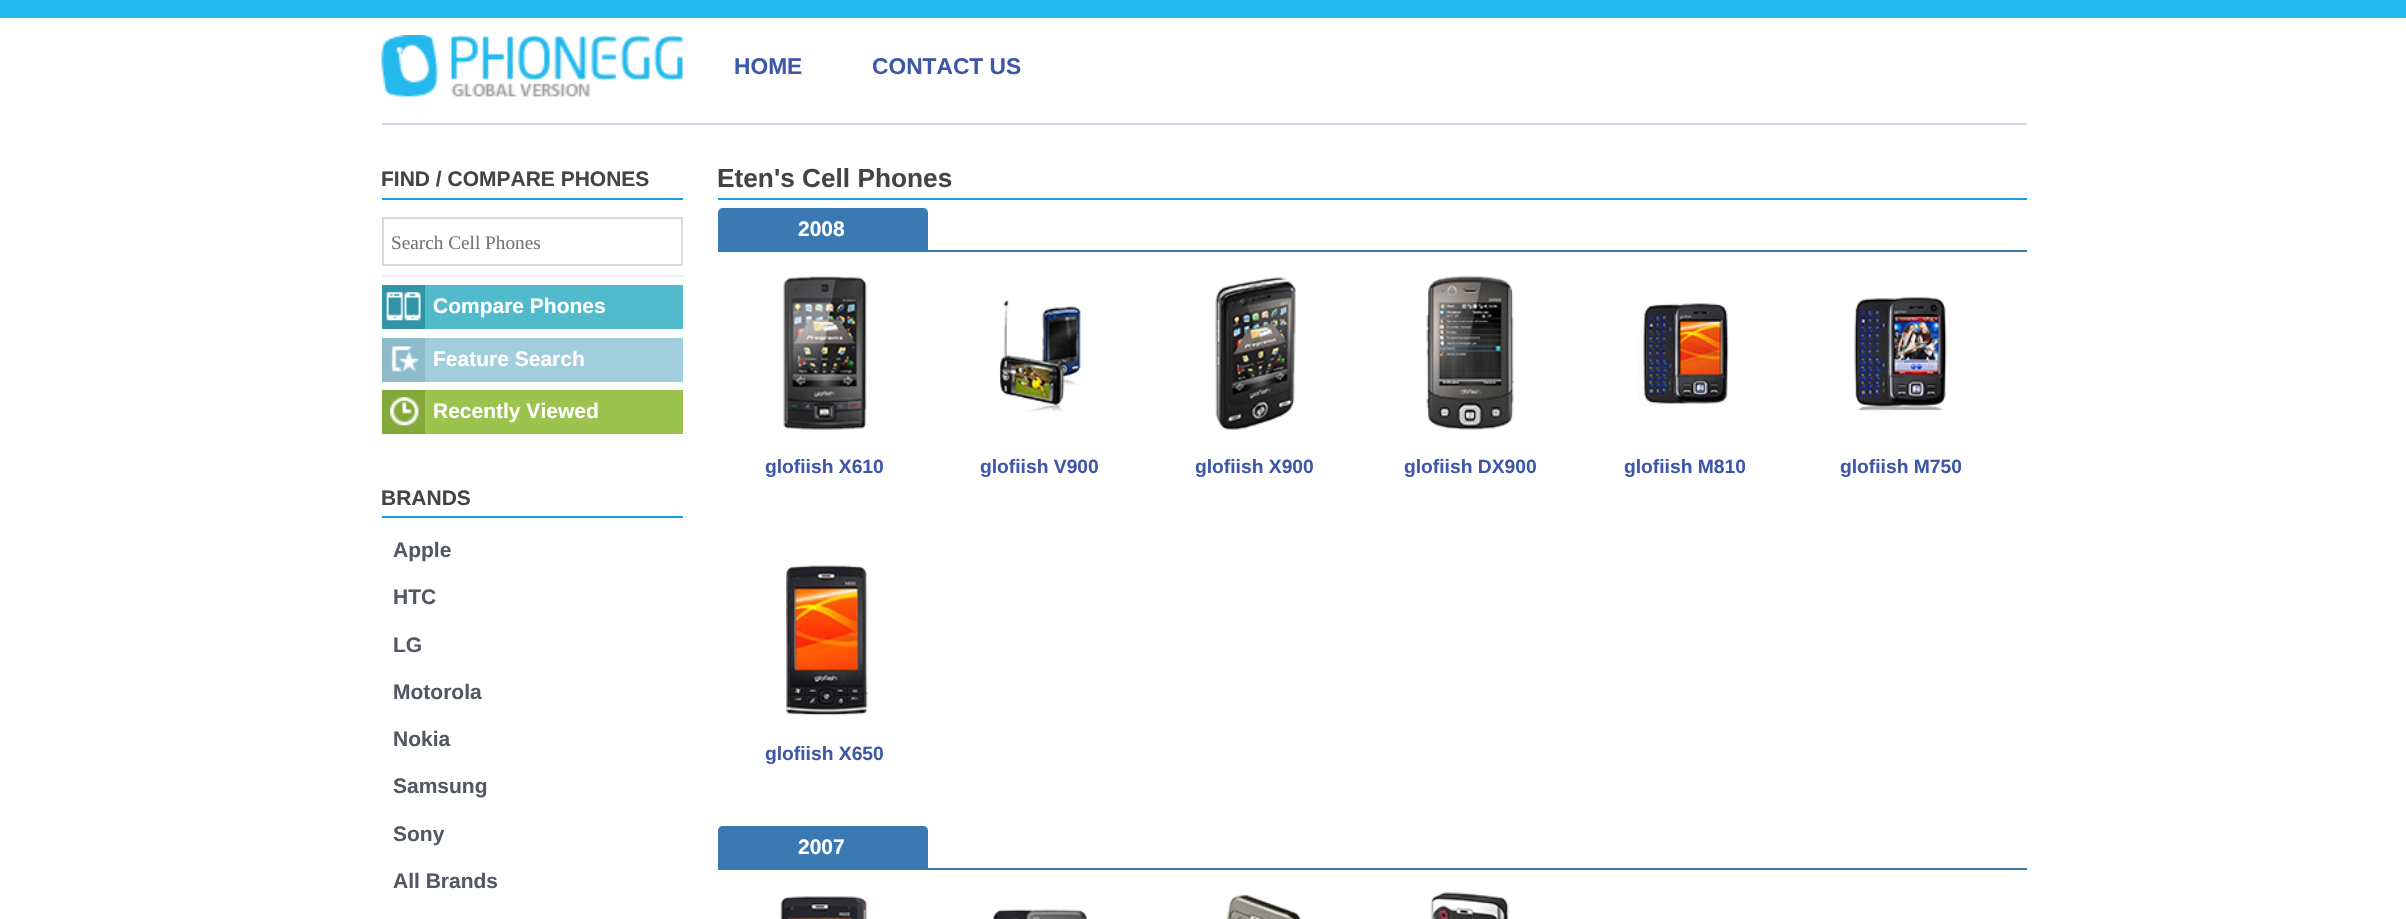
void draw(SkCanvas* canvas) {
    SkPaint paint;
    paint.setAntiAlias(true);
    auto face = [&](const char* family, int weight, float size, bool italic = false) {
        SkFontStyle style(weight, SkFontStyle::kNormal_Width,
            italic ? SkFontStyle::kItalic_Slant : SkFontStyle::kUpright_Slant);
        SkFont result(fontMgr->matchFamilyStyle(family, style), size);
        result.setSubpixel(true);
        return result;
    };
    auto write = [&](const char* s, float x, float y, const SkFont& font, SkColor color) {
        SkPaint ink(SkColor4f::FromColor(color));
        ink.setAntiAlias(true);
        canvas->drawString(s, x, y, font, ink);
    };
    auto block = [&](float x, float y, float w, float h, SkColor color) {
        SkPaint ink(SkColor4f::FromColor(color));
        ink.setAntiAlias(true);
        canvas->drawRect(SkRect::MakeXYWH(x, y, w, h), ink);
    };
    auto paste = [&](const char* path, float x, float y, float w, float h) {
        auto image = SkImages::DeferredFromEncodedData(SkData::MakeFromFileName(path));
        canvas->drawImageRect(image, SkRect::MakeXYWH(x, y, w, h), SkSamplingOptions());
    };
    canvas->clear(SK_ColorWHITE);
    block(0, 0, 2406, 18, SkColorSetRGB(36, 185, 236));
    block(382, 123, 1645, 2, SkColorSetRGB(209, 216, 232));
    paste("pic1.png", 381, 35, 302, 62);
    auto kFont1 = face("Liberation Sans", 700, 22.75f);
    write("HOME", 734, 74, kFont1, SkColorSetRGB(62, 87, 167));
    write("CONTACT US", 872, 74, kFont1, SkColorSetRGB(62, 87, 167));
    block(382, 198, 301, 2, SkColorSetRGB(22, 160, 224));
    auto kFont2 = face("Liberation Sans", 700, 21);
    write("FIND / COMPARE PHONES", 381, 186, kFont2, SkColorSetRGB(68, 68, 68));
    paint.setStyle(SkPaint::kStroke_Style);
    paint.setStrokeWidth(2);
    paint.setColor(SkColorSetRGB(218, 218, 218));
    canvas->drawRect(SkRect::MakeXYWH(383, 218, 299, 47), paint);
    auto kFont3 = face("Liberation Serif", 400, 19.25f);
    write("Search Cell Phones", 391, 249, kFont3, SkColorSetRGB(117, 117, 117));
    block(382, 275, 301, 2, SkColorSetRGB(239, 239, 239));
    block(382, 285, 43, 44, SkColorSetRGB(50, 149, 167));
    paste("pic2.png", 386, 292, 35, 29);
    block(425, 285, 258, 44, SkColorSetRGB(81, 186, 205));
    write("Compare Phones", 433, 313, kFont2, SK_ColorWHITE);
    block(382, 338, 43, 44, SkColorSetRGB(142, 187, 203));
    paste("pic3.png", 391, 346, 29, 26);
    block(425, 338, 258, 44, SkColorSetRGB(161, 205, 221));
    write("Feature Search", 433, 366, kFont2, SK_ColorWHITE);
    block(382, 390, 43, 44, SkColorSetRGB(132, 169, 59));
    paste("pic4.png", 390, 397, 29, 29);
    block(425, 390, 258, 44, SkColorSetRGB(155, 195, 77));
    write("Recently Viewed", 433, 418, kFont2, SK_ColorWHITE);
    block(382, 516, 301, 2, SkColorSetRGB(22, 160, 224));
    write("BRANDS", 381, 505, kFont2, SkColorSetRGB(68, 68, 68));
    write("Apple", 393, 557, kFont2, SkColorSetRGB(82, 88, 100));
    write("HTC", 393, 604, kFont2, SkColorSetRGB(82, 88, 100));
    write("LG", 393, 652, kFont2, SkColorSetRGB(82, 88, 100));
    write("Motorola", 393, 699, kFont2, SkColorSetRGB(82, 88, 100));
    write("Nokia", 393, 746, kFont2, SkColorSetRGB(82, 88, 100));
    write("Samsung", 393, 793, kFont2, SkColorSetRGB(82, 88, 100));
    write("Sony", 393, 841, kFont2, SkColorSetRGB(82, 88, 100));
    write("All Brands", 393, 888, kFont2, SkColorSetRGB(82, 88, 100));
    block(718, 198, 1309, 2, SkColorSetRGB(22, 160, 224));
    auto kFont4 = face("Liberation Sans", 700, 26.25f);
    write("Eten's Cell Phones", 717, 187, kFont4, SkColorSetRGB(68, 68, 68));
    block(718, 250, 1309, 2, SkColorSetRGB(59, 121, 178));
    paint.setStyle(SkPaint::kFill_Style);
    paint.setColor(SkColorSetRGB(59, 121, 178));
    canvas->drawPath(SkPathBuilder().moveTo(723, 208).lineTo(923, 208).cubicTo(926, 208, 928, 210, 928, 213).lineTo(928, 250).lineTo(718, 250).lineTo(718, 213).cubicTo(718, 210, 720, 208, 723, 208).close().detach(), paint);
    write("2008", 798, 236, kFont2, SK_ColorWHITE);
    paste("pic5.png", 783, 276, 84, 154);
    auto kFont5 = face("Liberation Sans", 700, 19.25f);
    write("glofiish X610", 765, 473, kFont5, SkColorSetRGB(62, 87, 167));
    paste("pic6.png", 999, 300, 82, 112);
    write("glofiish V900", 980, 473, kFont5, SkColorSetRGB(62, 87, 167));
    paste("pic7.png", 1215, 277, 81, 153);
    write("glofiish X900", 1195, 473, kFont5, SkColorSetRGB(62, 87, 167));
    paste("pic8.png", 1426, 276, 88, 154);
    write("glofiish DX900", 1404, 473, kFont5, SkColorSetRGB(62, 87, 167));
    paste("pic9.png", 1638, 303, 91, 103);
    write("glofiish M810", 1624, 473, kFont5, SkColorSetRGB(62, 87, 167));
    paste("pic10.png", 1854, 296, 93, 115);
    write("glofiish M750", 1840, 473, kFont5, SkColorSetRGB(62, 87, 167));
    paste("pic11.png", 785, 565, 83, 151);
    write("glofiish X650", 765, 760, kFont5, SkColorSetRGB(62, 87, 167));
    block(718, 868, 1309, 2, SkColorSetRGB(59, 121, 178));
    canvas->drawPath(SkPathBuilder().moveTo(723, 826).lineTo(923, 826).cubicTo(926, 826, 928, 828, 928, 831).lineTo(928, 868).lineTo(718, 868).lineTo(718, 831).cubicTo(718, 828, 720, 826, 723, 826).close().detach(), paint);
    write("2007", 798, 854, kFont2, SK_ColorWHITE);
    paste("pic12.png", 780, 896, 88, 23);
    paste("pic13.png", 993, 909, 94, 10);
    paste("pic14.png", 1226, 894, 75, 25);
    paste("pic15.png", 1430, 892, 79, 27);
}
